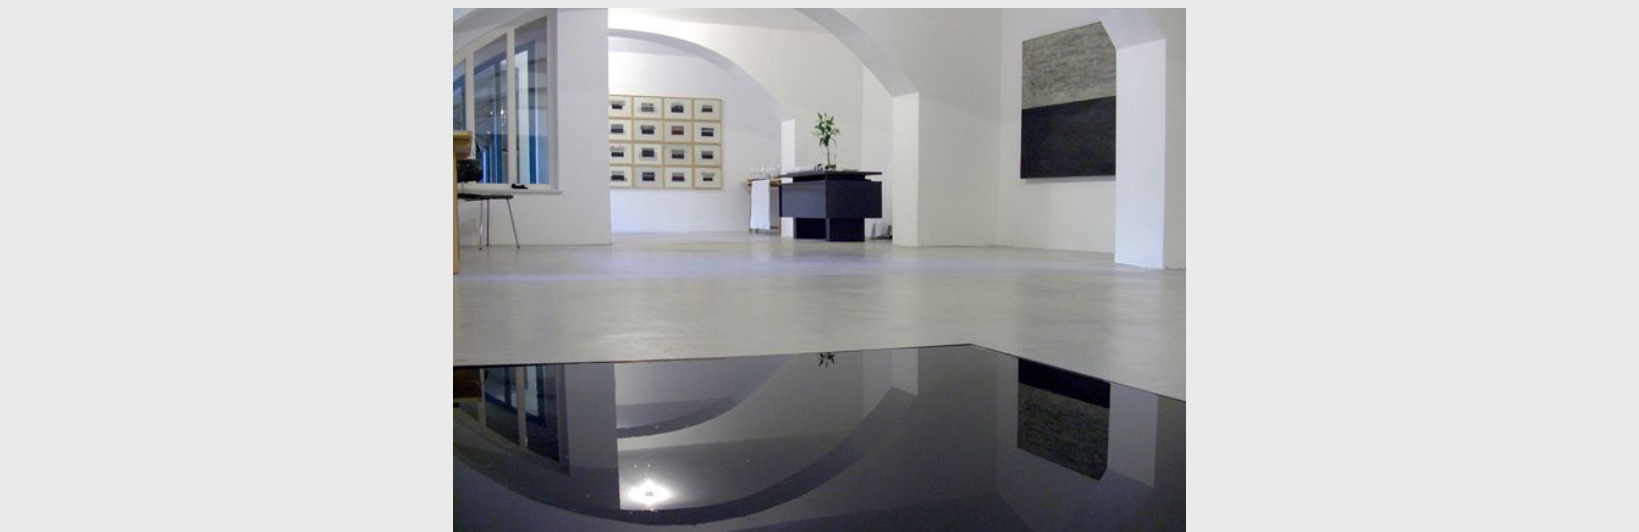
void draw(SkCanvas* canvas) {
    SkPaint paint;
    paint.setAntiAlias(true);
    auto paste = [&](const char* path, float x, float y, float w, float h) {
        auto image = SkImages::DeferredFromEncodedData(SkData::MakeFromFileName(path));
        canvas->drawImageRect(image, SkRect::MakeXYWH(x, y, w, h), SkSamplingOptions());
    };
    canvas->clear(SkColorSetRGB(234, 234, 234));
    paste("pic1.png", 453, 8, 733, 524);
}
